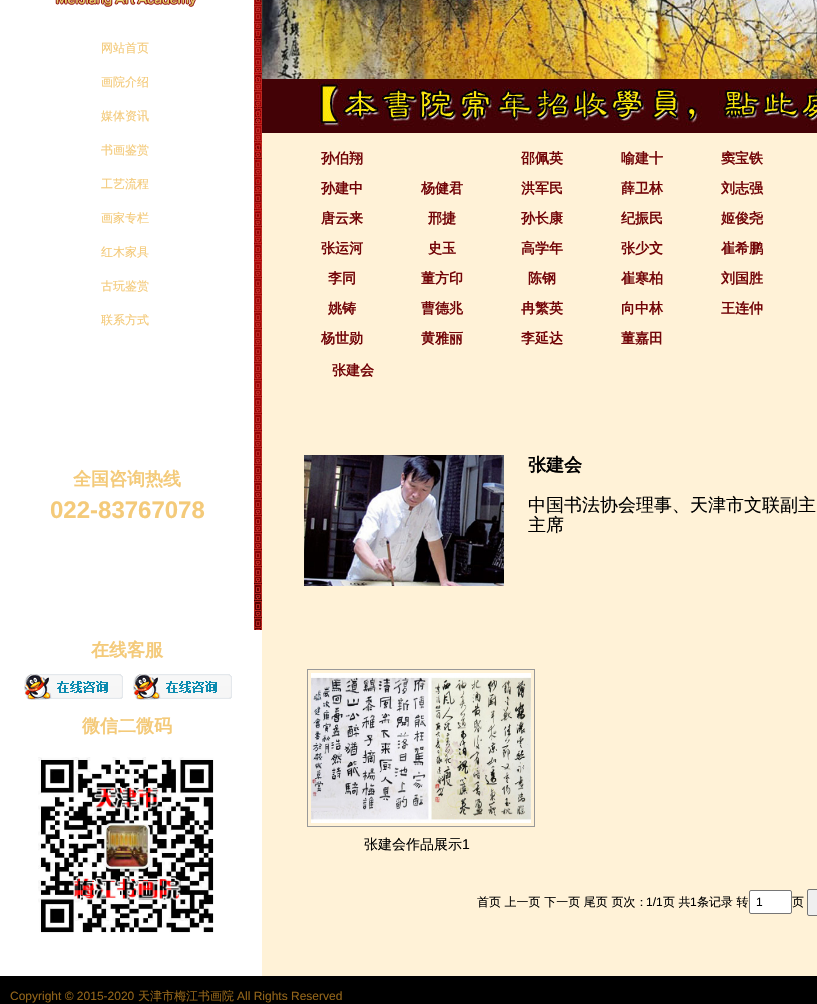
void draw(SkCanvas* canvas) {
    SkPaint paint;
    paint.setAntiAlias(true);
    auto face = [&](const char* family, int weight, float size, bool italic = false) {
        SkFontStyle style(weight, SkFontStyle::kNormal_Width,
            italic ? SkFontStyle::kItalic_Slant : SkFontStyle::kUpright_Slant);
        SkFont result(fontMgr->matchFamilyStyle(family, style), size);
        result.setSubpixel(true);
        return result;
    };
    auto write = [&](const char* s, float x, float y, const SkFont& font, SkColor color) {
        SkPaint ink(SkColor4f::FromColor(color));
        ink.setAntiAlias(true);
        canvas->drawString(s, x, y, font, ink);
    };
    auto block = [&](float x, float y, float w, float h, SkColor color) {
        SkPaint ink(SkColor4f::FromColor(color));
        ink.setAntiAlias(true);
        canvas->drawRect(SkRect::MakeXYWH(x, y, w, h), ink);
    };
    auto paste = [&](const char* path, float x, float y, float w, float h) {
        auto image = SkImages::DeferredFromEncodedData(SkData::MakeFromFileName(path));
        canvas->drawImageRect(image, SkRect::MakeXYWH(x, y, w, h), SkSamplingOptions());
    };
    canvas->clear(SK_ColorWHITE);
    paste("pic1.png", 55, 0, 141, 7);
    auto kFont1 = face("WenQuanYi Zen Hei", 500, 12);
    write("网站首页", 101, 52, kFont1, SkColorSetRGB(244, 202, 121));
    write("画院介绍", 101, 86, kFont1, SkColorSetRGB(244, 202, 121));
    write("媒体资讯", 101, 120, kFont1, SkColorSetRGB(244, 202, 121));
    write("书画鉴赏", 101, 154, kFont1, SkColorSetRGB(244, 202, 121));
    write("工艺流程", 101, 188, kFont1, SkColorSetRGB(244, 202, 121));
    write("画家专栏", 101, 222, kFont1, SkColorSetRGB(244, 202, 121));
    write("红木家具", 101, 256, kFont1, SkColorSetRGB(244, 202, 121));
    write("古玩鉴赏", 101, 290, kFont1, SkColorSetRGB(244, 202, 121));
    write("联系方式", 101, 324, kFont1, SkColorSetRGB(244, 202, 121));
    auto kFont2 = face("WenQuanYi Zen Hei", 700, 18);
    write("全国咨询热线", 73, 485, kFont2, SkColorSetRGB(244, 202, 121));
    auto kFont3 = face("Liberation Sans", 700, 24);
    write("022-83767078", 50, 518, kFont3, SkColorSetRGB(244, 202, 121));
    write("在线客服", 91, 656, kFont2, SkColorSetRGB(244, 202, 121));
    paste("pic2.png", 24, 674, 99, 26);
    paste("pic2.png", 133, 674, 99, 26);
    write("微信二微码", 82, 732, kFont2, SkColorSetRGB(244, 202, 121));
    paste("pic3.png", 38, 757, 176, 176);
    paste("pic4.png", 254, 0, 8, 630);
    block(262, 133, 555, 843, SkColorSetRGB(255, 242, 215));
    paste("pic5.png", 262, 0, 16, 79);
    paste("pic6.png", 278, 0, 539, 79);
    paste("pic7.png", 262, 79, 555, 54);
    auto kFont4 = face("WenQuanYi Zen Hei", 700, 14);
    write("孙伯翔", 321, 163, kFont4, SkColorSetRGB(115, 5, 8));
    write("邵佩英", 521, 163, kFont4, SkColorSetRGB(115, 5, 8));
    write("喻建十", 621, 163, kFont4, SkColorSetRGB(115, 5, 8));
    write("窦宝铁", 721, 163, kFont4, SkColorSetRGB(115, 5, 8));
    write("孙建中", 321, 193, kFont4, SkColorSetRGB(115, 5, 8));
    write("杨健君", 421, 193, kFont4, SkColorSetRGB(115, 5, 8));
    write("洪军民", 521, 193, kFont4, SkColorSetRGB(115, 5, 8));
    write("薛卫林", 621, 193, kFont4, SkColorSetRGB(115, 5, 8));
    write("刘志强", 721, 193, kFont4, SkColorSetRGB(115, 5, 8));
    write("唐云来", 321, 223, kFont4, SkColorSetRGB(115, 5, 8));
    write("邢捷", 428, 223, kFont4, SkColorSetRGB(115, 5, 8));
    write("孙长康", 521, 223, kFont4, SkColorSetRGB(115, 5, 8));
    write("纪振民", 621, 223, kFont4, SkColorSetRGB(115, 5, 8));
    write("姬俊尧", 721, 223, kFont4, SkColorSetRGB(115, 5, 8));
    write("张运河", 321, 253, kFont4, SkColorSetRGB(115, 5, 8));
    write("史玉", 428, 253, kFont4, SkColorSetRGB(115, 5, 8));
    write("高学年", 521, 253, kFont4, SkColorSetRGB(115, 5, 8));
    write("张少文", 621, 253, kFont4, SkColorSetRGB(115, 5, 8));
    write("崔希鹏", 721, 253, kFont4, SkColorSetRGB(115, 5, 8));
    write("李同", 328, 283, kFont4, SkColorSetRGB(115, 5, 8));
    write("董方印", 421, 283, kFont4, SkColorSetRGB(115, 5, 8));
    write("陈钢", 528, 283, kFont4, SkColorSetRGB(115, 5, 8));
    write("崔寒柏", 621, 283, kFont4, SkColorSetRGB(115, 5, 8));
    write("刘国胜", 721, 283, kFont4, SkColorSetRGB(115, 5, 8));
    write("姚铸", 328, 313, kFont4, SkColorSetRGB(115, 5, 8));
    write("曹德兆", 421, 313, kFont4, SkColorSetRGB(115, 5, 8));
    write("冉繁英", 521, 313, kFont4, SkColorSetRGB(115, 5, 8));
    write("向中林", 621, 313, kFont4, SkColorSetRGB(115, 5, 8));
    write("王连仲", 721, 313, kFont4, SkColorSetRGB(115, 5, 8));
    write("杨世勋", 321, 343, kFont4, SkColorSetRGB(115, 5, 8));
    write("黄雅丽", 421, 343, kFont4, SkColorSetRGB(115, 5, 8));
    write("李延达", 521, 343, kFont4, SkColorSetRGB(115, 5, 8));
    write("董嘉田", 621, 343, kFont4, SkColorSetRGB(115, 5, 8));
    write("张建会", 332, 375, kFont4, SkColorSetRGB(115, 5, 8));
    paste("pic8.png", 304, 455, 200, 131);
    write("张建会", 528, 471, kFont2, SK_ColorBLACK);
    auto kFont5 = face("WenQuanYi Zen Hei", 500, 18);
    write("中国书法协会理事、天津市文联副主", 528, 511, kFont5, SK_ColorBLACK);
    write("主席", 528, 531, kFont5, SK_ColorBLACK);
    paint.setStyle(SkPaint::kStroke_Style);
    paint.setStrokeWidth(1);
    paint.setColor(SkColorSetRGB(153, 153, 153));
    canvas->drawRect(SkRect::MakeXYWH(307.5f, 669.5f, 227, 157), paint);
    paste("pic9.png", 311, 673, 220, 150);
    auto kFont6 = face("WenQuanYi Zen Hei", 500, 14);
    write("张建会作品展示", 364, 849, kFont6, SK_ColorBLACK);
    auto kFont7 = face("Liberation Sans", 400, 14);
    write("1", 462, 849, kFont7, SK_ColorBLACK);
    write("首页 上一页 下一页 尾页 页次：", 477, 906, kFont1, SK_ColorBLACK);
    auto kFont8 = face("Liberation Sans", 400, 12);
    write("1/1", 646, 906, kFont8, SK_ColorBLACK);
    write("页 共", 663, 906, kFont1, SK_ColorBLACK);
    write("1", 690, 906, kFont8, SK_ColorBLACK);
    write("条记录 转", 697, 906, kFont1, SK_ColorBLACK);
    paint.setStyle(SkPaint::kFill_Style);
    paint.setColor(SK_ColorWHITE);
    canvas->drawRoundRect(SkRect::MakeXYWH(749.5f, 890.5f, 42, 23), 1.5f, 1.5f, paint);
    paint.setStyle(SkPaint::kStroke_Style);
    paint.setColor(SkColorSetRGB(118, 118, 118));
    canvas->drawRoundRect(SkRect::MakeXYWH(749.5f, 890.5f, 42, 23), 1.5f, 1.5f, paint);
    write("1", 756, 906, kFont8, SK_ColorBLACK);
    write("页", 792, 906, kFont1, SK_ColorBLACK);
    paint.setStyle(SkPaint::kFill_Style);
    paint.setColor(SkColorSetRGB(239, 239, 239));
    canvas->drawRoundRect(SkRect::MakeXYWH(807.5f, 889.5f, 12, 26), 1.5f, 1.5f, paint);
    paint.setStyle(SkPaint::kStroke_Style);
    paint.setColor(SkColorSetRGB(118, 118, 118));
    canvas->drawRoundRect(SkRect::MakeXYWH(807.5f, 889.5f, 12, 26), 1.5f, 1.5f, paint);
    block(0, 976, 817, 28, SK_ColorBLACK);
    write("Copyright © 2015-2020", 10, 1000, kFont8, SkColorSetRGB(146, 100, 25));
    write("天津市梅江书画院", 138, 1000, kFont1, SkColorSetRGB(146, 100, 25));
    write("All Rights Reserved", 237, 1000, kFont8, SkColorSetRGB(146, 100, 25));
}
